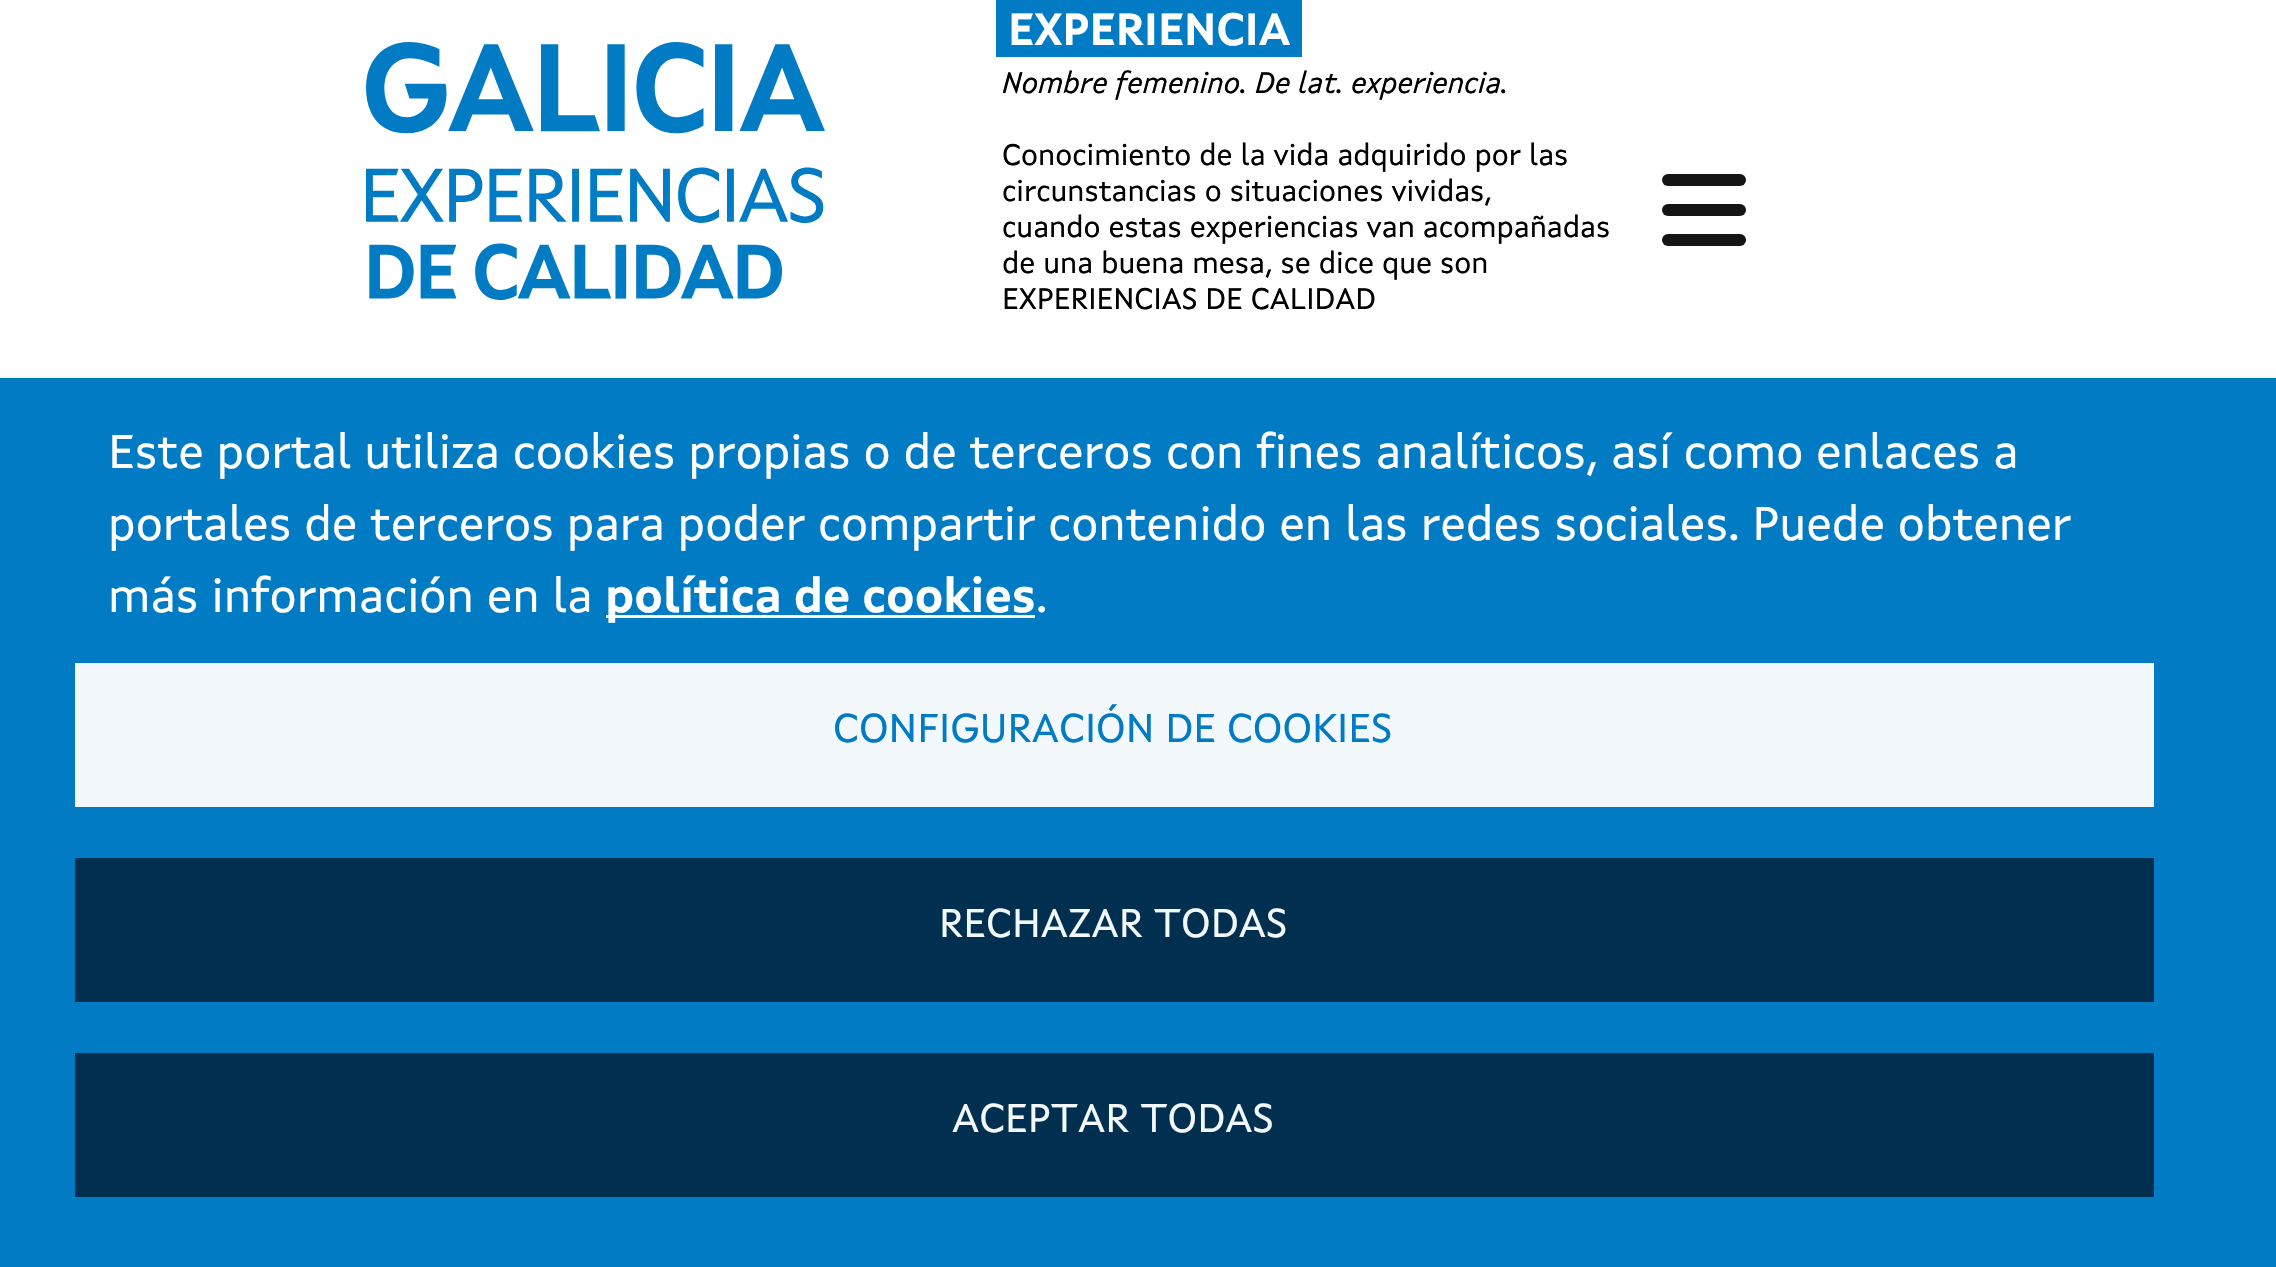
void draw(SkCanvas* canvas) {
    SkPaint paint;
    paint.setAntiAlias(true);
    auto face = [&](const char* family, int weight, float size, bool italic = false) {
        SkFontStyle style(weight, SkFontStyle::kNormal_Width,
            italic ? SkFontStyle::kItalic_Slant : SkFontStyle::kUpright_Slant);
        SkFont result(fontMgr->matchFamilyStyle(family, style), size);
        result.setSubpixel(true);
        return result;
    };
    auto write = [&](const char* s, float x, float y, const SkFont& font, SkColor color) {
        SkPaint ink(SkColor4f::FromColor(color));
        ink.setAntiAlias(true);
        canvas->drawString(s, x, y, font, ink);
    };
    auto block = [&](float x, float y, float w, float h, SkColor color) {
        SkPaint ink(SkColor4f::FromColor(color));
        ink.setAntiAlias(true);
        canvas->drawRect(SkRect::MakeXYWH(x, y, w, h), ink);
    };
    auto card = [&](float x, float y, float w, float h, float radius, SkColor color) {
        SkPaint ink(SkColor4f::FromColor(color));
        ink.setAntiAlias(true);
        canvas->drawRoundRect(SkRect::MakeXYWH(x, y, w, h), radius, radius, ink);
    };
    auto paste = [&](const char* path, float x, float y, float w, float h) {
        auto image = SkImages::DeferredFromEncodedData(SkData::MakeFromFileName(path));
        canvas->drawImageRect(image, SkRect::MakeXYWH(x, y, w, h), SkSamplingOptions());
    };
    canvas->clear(SkColorSetRGB(0, 123, 196));
    block(0, 0, 2276, 378, SK_ColorWHITE);
    paste("pic1.png", 366, 42, 459, 258);
    block(996, 0, 306, 57, SkColorSetRGB(0, 123, 196));
    auto kFont1 = face("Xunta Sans", 700, 45);
    write("EXPERIENCIA", 1008, 45, kFont1, SK_ColorWHITE);
    auto kFont2 = face("Xunta Sans", 400, 30, true);
    write("Nombre femenino. De lat. experiencia.", 1002, 93, kFont2, SK_ColorBLACK);
    auto kFont3 = face("Xunta Sans", 400, 30);
    write("Conocimiento de la vida adquirido por las", 1002, 165, kFont3, SK_ColorBLACK);
    write("circunstancias o situaciones vividas,", 1002, 201, kFont3, SK_ColorBLACK);
    write("cuando estas experiencias van acompañadas", 1002, 237, kFont3, SK_ColorBLACK);
    write("de una buena mesa, se dice que son", 1002, 273, kFont3, SK_ColorBLACK);
    write("EXPERIENCIAS DE CALIDAD", 1002, 309, kFont3, SK_ColorBLACK);
    card(1662, 174, 84, 12, 6, SkColorSetRGB(21, 21, 21));
    card(1662, 204, 84, 12, 6, SkColorSetRGB(21, 21, 21));
    card(1662, 234, 84, 12, 6, SkColorSetRGB(21, 21, 21));
    auto kFont4 = face("Xunta Sans", 400, 48);
    write("Este portal utiliza cookies propias o de terceros con fines analíticos, así como enlaces a", 108, 468, kFont4, SK_ColorWHITE);
    write("portales de terceros para poder compartir contenido en las redes sociales. Puede obtener", 108, 540, kFont4, SK_ColorWHITE);
    write("más información en la", 108, 612, kFont4, SK_ColorWHITE);
    block(606, 615, 429, 3, SK_ColorWHITE);
    auto kFont5 = face("Xunta Sans", 700, 48);
    write("política de cookies", 605, 612, kFont5, SK_ColorWHITE);
    write(".", 1036, 612, kFont4, SK_ColorWHITE);
    block(75, 663, 2079, 144, SkColorSetRGB(242, 248, 252));
    auto kFont6 = face("Xunta Sans", 400, 40.75f);
    write("CONFIGURACIÓN DE COOKIES", 833, 742, kFont6, SkColorSetRGB(0, 123, 196));
    block(75, 858, 2079, 144, SkColorSetRGB(0, 47, 80));
    write("RECHAZAR TODAS", 939, 937, kFont6, SkColorSetRGB(242, 248, 252));
    block(75, 1053, 2079, 144, SkColorSetRGB(0, 47, 80));
    write("ACEPTAR TODAS", 952, 1132, kFont6, SkColorSetRGB(242, 248, 252));
}
